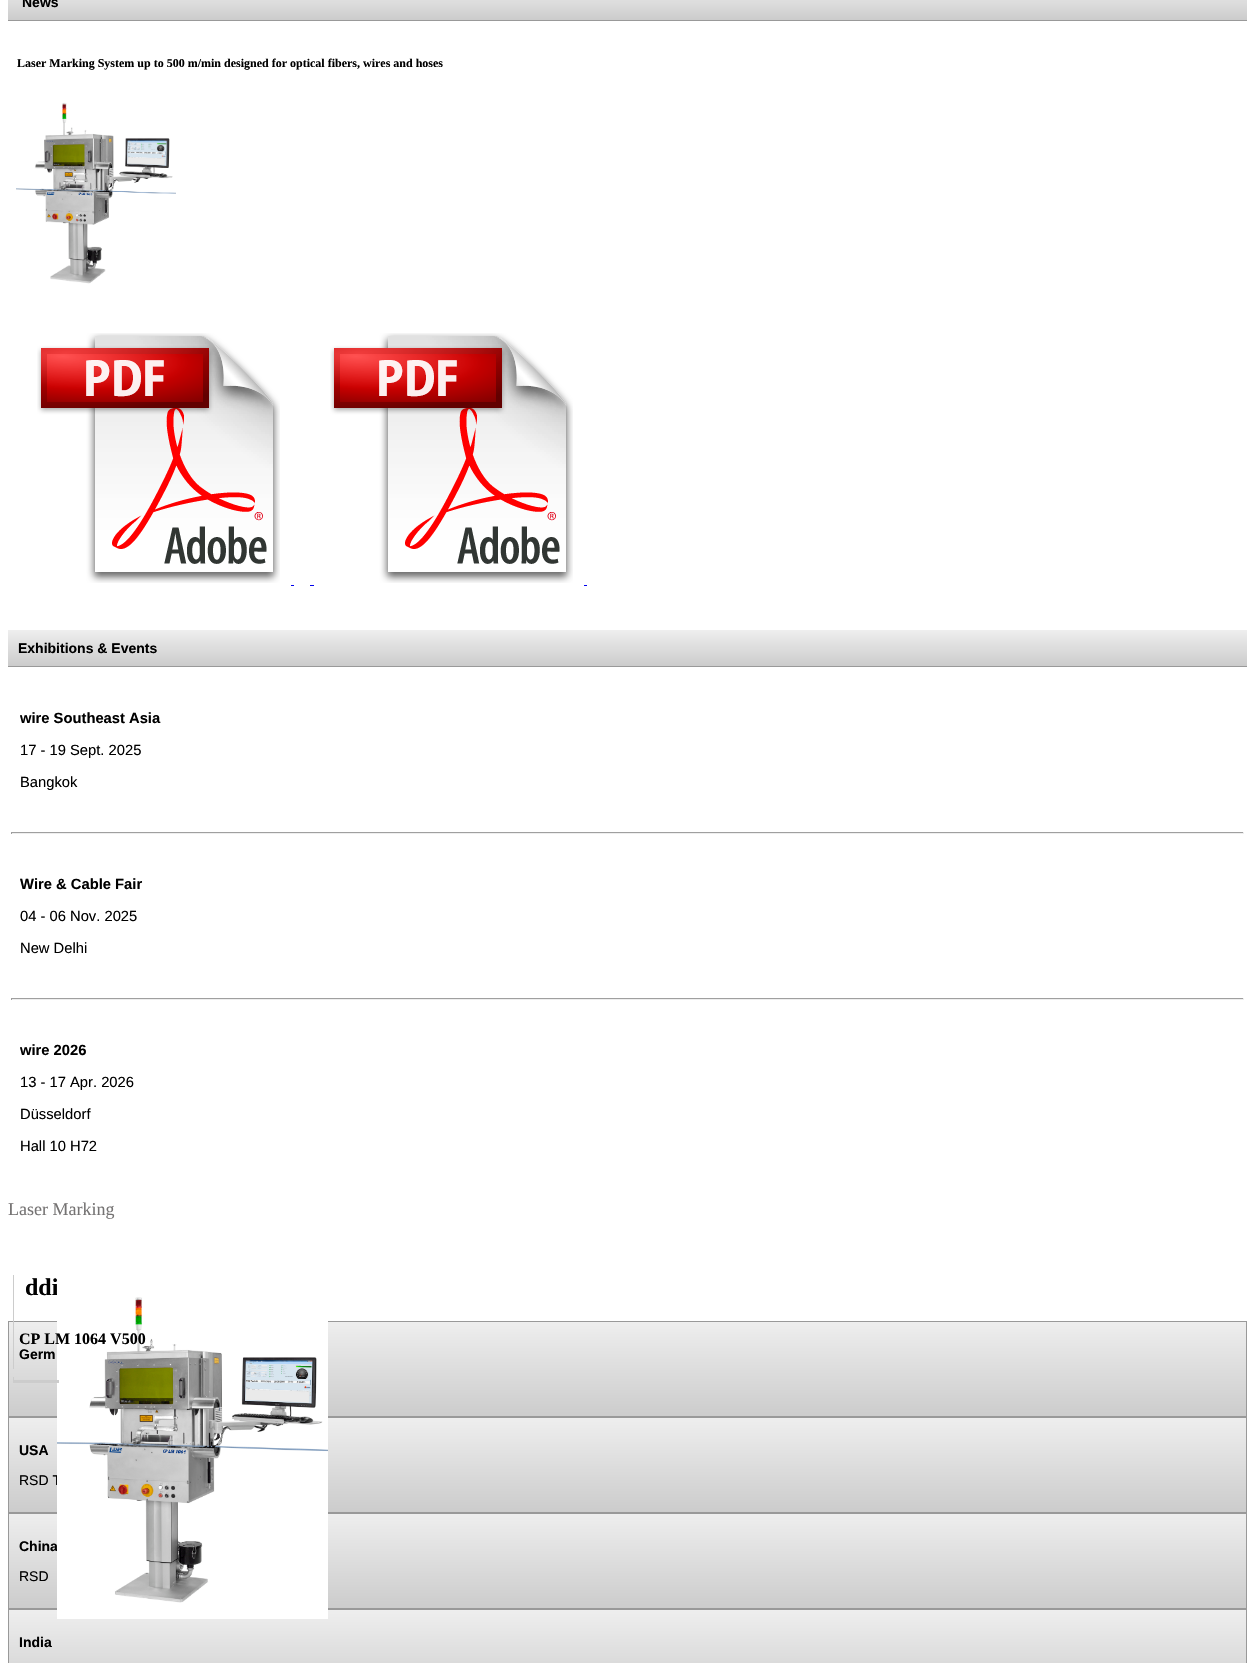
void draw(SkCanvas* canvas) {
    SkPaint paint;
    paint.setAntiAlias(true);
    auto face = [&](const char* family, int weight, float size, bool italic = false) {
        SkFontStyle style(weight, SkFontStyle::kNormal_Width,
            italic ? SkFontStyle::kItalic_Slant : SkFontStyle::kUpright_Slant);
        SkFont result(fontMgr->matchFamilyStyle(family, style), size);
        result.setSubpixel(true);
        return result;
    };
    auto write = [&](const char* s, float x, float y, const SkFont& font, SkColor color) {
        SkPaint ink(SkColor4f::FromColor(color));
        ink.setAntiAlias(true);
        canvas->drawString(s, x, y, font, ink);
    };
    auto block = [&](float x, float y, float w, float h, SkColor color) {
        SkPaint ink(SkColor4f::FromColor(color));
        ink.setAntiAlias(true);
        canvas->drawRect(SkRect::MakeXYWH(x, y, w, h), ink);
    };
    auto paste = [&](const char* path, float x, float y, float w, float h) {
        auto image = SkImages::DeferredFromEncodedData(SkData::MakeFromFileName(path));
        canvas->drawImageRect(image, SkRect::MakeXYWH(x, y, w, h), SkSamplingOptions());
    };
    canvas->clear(SK_ColorWHITE);
    {
        const SkColor colors[] = {SkColorSetRGB(238, 238, 238), SkColorSetRGB(204, 204, 204)};
        const float stops[] = {0, 1};
        const SkPoint ends[] = {{628, -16}, {628, 20}};
        paint.setShader(SkGradientShader::MakeLinear(ends, colors, stops, 2, SkTileMode::kClamp));
        paint.setAlpha(255);
    }
    canvas->drawRect(SkRect::MakeXYWH(8, 0, 1239, 20), paint);
    block(8, 20, 1239, 1, SkColorSetRGB(153, 153, 153));
    auto kFont1 = face("Liberation Sans", 700, 14);
    write("News", 22, 7, kFont1, SK_ColorBLACK);
    auto kFont2 = face("Liberation Serif", 700, 12);
    write("Laser Marking System up to 500 m/min designed for optical fibers, wires and hoses", 17, 67, kFont2, SK_ColorBLACK);
    paste("pic1.png", 16, 102, 160, 182);
    paste("pic2.png", 37, 333, 243, 250);
    paste("pic2.png", 330, 333, 243, 250);
    block(291, 585, 3, 1, SkColorSetRGB(0, 0, 238));
    block(310, 585, 4, 1, SkColorSetRGB(0, 0, 238));
    block(584, 585, 3, 1, SkColorSetRGB(0, 0, 238));
    {
        const SkColor colors[] = {SkColorSetRGB(238, 238, 238), SkColorSetRGB(204, 204, 204)};
        const float stops[] = {0, 1};
        const SkPoint ends[] = {{628, 630}, {628, 666}};
        paint.setShader(SkGradientShader::MakeLinear(ends, colors, stops, 2, SkTileMode::kClamp));
        paint.setAlpha(255);
    }
    canvas->drawRect(SkRect::MakeXYWH(8, 630, 1239, 36), paint);
    block(8, 666, 1239, 1, SkColorSetRGB(153, 153, 153));
    write("Exhibitions & Events", 18, 653, kFont1, SK_ColorBLACK);
    auto kFont3 = face("Liberation Sans", 700, 14.75f);
    write("wire Southeast Asia", 20, 723, kFont3, SK_ColorBLACK);
    auto kFont4 = face("Liberation Sans", 400, 14.75f);
    write("17 - 19 Sept. 2025", 20, 755, kFont4, SK_ColorBLACK);
    write("Bangkok", 20, 787, kFont4, SK_ColorBLACK);
    block(11, 832, 1233, 1, SkColorSetRGB(159, 159, 159));
    block(1243, 832, 1, 2, SkColorSetRGB(238, 238, 238));
    block(11, 833, 1233, 1, SkColorSetRGB(238, 238, 238));
    block(11, 832, 1, 2, SkColorSetRGB(159, 159, 159));
    write("Wire & Cable Fair", 20, 889, kFont3, SK_ColorBLACK);
    write("04 - 06 Nov. 2025", 20, 921, kFont4, SK_ColorBLACK);
    write("New Delhi", 20, 953, kFont4, SK_ColorBLACK);
    block(11, 998, 1233, 1, SkColorSetRGB(159, 159, 159));
    block(1243, 998, 1, 2, SkColorSetRGB(238, 238, 238));
    block(11, 999, 1233, 1, SkColorSetRGB(238, 238, 238));
    block(11, 998, 1, 2, SkColorSetRGB(159, 159, 159));
    write("wire 2026", 20, 1055, kFont3, SK_ColorBLACK);
    write("13 - 17 Apr. 2026", 20, 1087, kFont4, SK_ColorBLACK);
    write("Düsseldorf", 20, 1119, kFont4, SK_ColorBLACK);
    write("Hall 10 H72", 20, 1151, kFont4, SK_ColorBLACK);
    auto kFont5 = face("Liberation Serif", 400, 18);
    write("Laser Marking", 8, 1215, kFont5, SkColorSetRGB(117, 115, 115));
    auto kFont6 = face("Liberation Serif", 700, 24);
    write("ddi", 25, 1295, kFont6, SK_ColorBLACK);
    {
        const SkColor colors[] = {SkColorSetRGB(238, 238, 238), SkColorSetRGB(204, 204, 204)};
        const float stops[] = {0, 1};
        const SkPoint ends[] = {{628, 1322}, {628, 1416}};
        paint.setShader(SkGradientShader::MakeLinear(ends, colors, stops, 2, SkTileMode::kClamp));
        paint.setAlpha(255);
    }
    canvas->drawRect(SkRect::MakeXYWH(9, 1322, 1237, 94), paint);
    paint.setStyle(SkPaint::kStroke_Style);
    paint.setStrokeWidth(1);
    paint.setShader(nullptr);
    paint.setColor(SkColorSetRGB(153, 153, 153));
    canvas->drawRect(SkRect::MakeXYWH(8.5f, 1321.5f, 1238, 95), paint);
    paint.setStyle(SkPaint::kFill_Style);
    {
        const SkColor colors[] = {SkColorSetRGB(238, 238, 238), SkColorSetRGB(204, 204, 204)};
        const float stops[] = {0, 1};
        const SkPoint ends[] = {{628, 1418}, {628, 1512}};
        paint.setShader(SkGradientShader::MakeLinear(ends, colors, stops, 2, SkTileMode::kClamp));
        paint.setAlpha(255);
    }
    canvas->drawRect(SkRect::MakeXYWH(9, 1418, 1237, 94), paint);
    paint.setStyle(SkPaint::kStroke_Style);
    paint.setShader(nullptr);
    paint.setColor(SkColorSetRGB(153, 153, 153));
    canvas->drawRect(SkRect::MakeXYWH(8.5f, 1417.5f, 1238, 95), paint);
    auto kFont7 = face("Liberation Sans", 400, 14);
    write("RSD T", 19, 1485, kFont7, SK_ColorBLACK);
    paint.setStyle(SkPaint::kFill_Style);
    {
        const SkColor colors[] = {SkColorSetRGB(238, 238, 238), SkColorSetRGB(204, 204, 204)};
        const float stops[] = {0, 1};
        const SkPoint ends[] = {{628, 1514}, {628, 1608}};
        paint.setShader(SkGradientShader::MakeLinear(ends, colors, stops, 2, SkTileMode::kClamp));
        paint.setAlpha(255);
    }
    canvas->drawRect(SkRect::MakeXYWH(9, 1514, 1237, 94), paint);
    paint.setStyle(SkPaint::kStroke_Style);
    paint.setShader(nullptr);
    paint.setColor(SkColorSetRGB(153, 153, 153));
    canvas->drawRect(SkRect::MakeXYWH(8.5f, 1513.5f, 1238, 95), paint);
    write("China", 19, 1551, kFont1, SK_ColorBLACK);
    paint.setStyle(SkPaint::kFill_Style);
    {
        const SkColor colors[] = {SkColorSetRGB(238, 238, 238), SkColorSetRGB(204, 204, 204)};
        const float stops[] = {0, 1};
        const SkPoint ends[] = {{628, 1610}, {628, 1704}};
        paint.setShader(SkGradientShader::MakeLinear(ends, colors, stops, 2, SkTileMode::kClamp));
        paint.setAlpha(255);
    }
    canvas->drawRect(SkRect::MakeXYWH(9, 1610, 1237, 53), paint);
    paint.setStyle(SkPaint::kStroke_Style);
    paint.setShader(nullptr);
    paint.setColor(SkColorSetRGB(153, 153, 153));
    canvas->drawRect(SkRect::MakeXYWH(8.5f, 1609.5f, 1238, 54), paint);
    paste("pic3.png", 57, 1289, 271, 330);
    block(13, 1275, 1, 94, SkColorSetRGB(204, 204, 204));
    auto kFont8 = face("Liberation Serif", 700, 16);
    write("CP LM 1064 V500", 19, 1344, kFont8, SK_ColorBLACK);
    block(13, 1380, 46, 3, SkColorSetRGB(204, 204, 204));
    block(13, 1377, 1, 6, SkColorSetRGB(204, 204, 204));
    write("Germ", 19, 1359, kFont1, SK_ColorBLACK);
    write("USA", 19, 1455, kFont1, SK_ColorBLACK);
    write("RSD", 19, 1581, kFont7, SK_ColorBLACK);
    write("India", 19, 1647, kFont1, SK_ColorBLACK);
}
